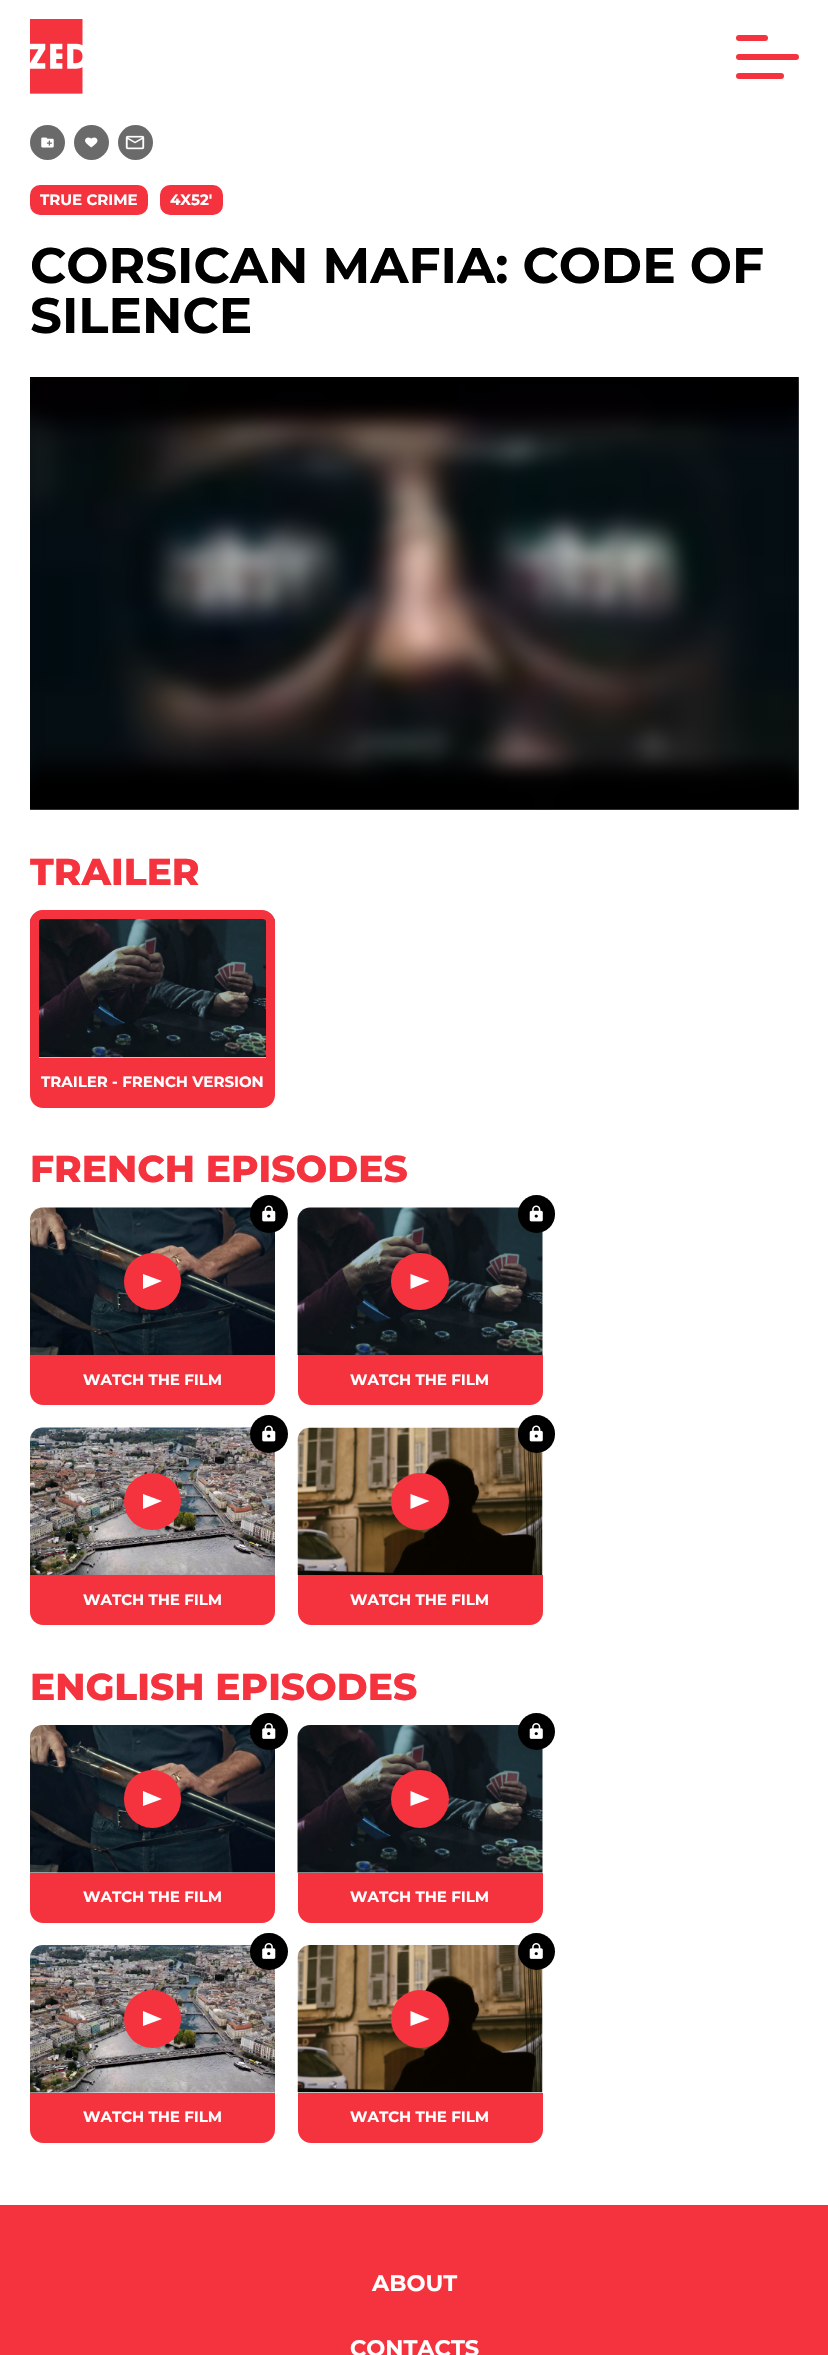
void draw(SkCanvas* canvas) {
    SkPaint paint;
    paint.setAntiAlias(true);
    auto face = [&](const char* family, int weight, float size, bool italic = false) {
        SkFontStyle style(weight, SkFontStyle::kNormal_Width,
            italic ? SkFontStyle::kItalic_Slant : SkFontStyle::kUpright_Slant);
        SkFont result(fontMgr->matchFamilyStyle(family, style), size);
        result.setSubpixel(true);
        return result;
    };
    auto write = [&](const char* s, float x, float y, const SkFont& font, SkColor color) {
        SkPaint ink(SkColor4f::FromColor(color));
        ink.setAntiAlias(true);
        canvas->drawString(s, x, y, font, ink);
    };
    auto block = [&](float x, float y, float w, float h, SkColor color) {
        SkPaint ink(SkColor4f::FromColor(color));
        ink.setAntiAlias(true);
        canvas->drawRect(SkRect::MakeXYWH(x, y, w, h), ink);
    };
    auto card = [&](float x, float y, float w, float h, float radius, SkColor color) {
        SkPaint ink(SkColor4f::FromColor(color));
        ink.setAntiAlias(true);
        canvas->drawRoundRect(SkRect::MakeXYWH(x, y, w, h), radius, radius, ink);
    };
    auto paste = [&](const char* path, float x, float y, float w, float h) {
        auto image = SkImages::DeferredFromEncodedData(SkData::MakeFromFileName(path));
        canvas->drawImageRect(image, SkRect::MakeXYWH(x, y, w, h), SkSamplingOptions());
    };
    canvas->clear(SK_ColorWHITE);
    paste("pic1.png", 30, 19, 53, 75);
    card(736, 35, 32, 6, 3, SkColorSetRGB(245, 51, 63));
    card(736, 54, 63, 6, 3, SkColorSetRGB(245, 51, 63));
    card(736, 73, 48, 6, 3, SkColorSetRGB(245, 51, 63));
    paint.setColor(SkColorSetRGB(106, 106, 106));
    canvas->drawCircle(47.5f, 142.5f, 17.5f, paint);
    paste("pic2.png", 41, 137, 13, 11);
    canvas->drawCircle(91.5f, 142.5f, 17.5f, paint);
    paste("pic3.png", 85, 137, 13, 11);
    canvas->drawCircle(135.5f, 142.5f, 17.5f, paint);
    paste("pic4.png", 125, 135, 20, 15);
    card(30, 185, 118, 30, 10, SkColorSetRGB(245, 51, 63));
    auto kFont1 = face("Montserrat", 700, 15);
    write("TRUE CRIME", 40, 205, kFont1, SK_ColorWHITE);
    card(160, 185, 63, 30, 10, SkColorSetRGB(245, 51, 63));
    write("4X52'", 170, 205, kFont1, SK_ColorWHITE);
    auto kFont2 = face("Montserrat", 700, 50);
    write("CORSICAN MAFIA: CODE OF", 30, 283, kFont2, SK_ColorBLACK);
    write("SILENCE", 30, 333, kFont2, SK_ColorBLACK);
    paste("pic5.png", 30, 377, 769, 433);
    auto kFont3 = face("Montserrat", 800, 37.5f);
    write("TRAILER", 30, 885, kFont3, SkColorSetRGB(245, 51, 63));
    paste("pic6.png", 30, 918, 245, 140);
    paint.setColor(SkColorSetRGB(245, 51, 63));
    canvas->drawPath(SkPathBuilder(SkPathFillType::kEvenOdd).moveTo(42, 910).lineTo(262, 910).cubicTo(269, 910, 275, 916, 275, 922).lineTo(275, 1058).lineTo(30, 1058).lineTo(30, 922).cubicTo(30, 916, 36, 910, 42, 910).close().moveTo(42, 919).lineTo(262, 919).cubicTo(265, 919, 266, 920, 266, 922).lineTo(266, 1058).lineTo(39, 1058).lineTo(39, 922).cubicTo(39, 920, 40, 919, 42, 919).close().detach(), paint);
    canvas->drawPath(SkPathBuilder().moveTo(30, 1058).lineTo(275, 1058).lineTo(275, 1095).cubicTo(275, 1102, 269, 1108, 262, 1108).lineTo(43, 1108).cubicTo(36, 1108, 30, 1102, 30, 1095).close().detach(), paint);
    write("TRAILER - FRENCH VERSION", 41, 1087, kFont1, SK_ColorWHITE);
    write("FRENCH EPISODES", 30, 1182, kFont3, SkColorSetRGB(245, 51, 63));
    paste("pic8.png", 30, 1207, 245, 148);
    paint.setColor(SK_ColorBLACK);
    canvas->drawCircle(269, 1214, 19, paint);
    paste("pic7.png", 262, 1205, 14, 17);
    paint.setColor(SkColorSetRGB(245, 51, 63));
    canvas->drawCircle(152.5f, 1281.5f, 28.5f, paint);
    paint.setColor(SK_ColorWHITE);
    canvas->drawPath(SkPathBuilder().moveTo(143, 1289).lineTo(143, 1274).lineTo(162, 1281).close().detach(), paint);
    paint.setColor(SkColorSetRGB(245, 51, 63));
    canvas->drawPath(SkPathBuilder().moveTo(30, 1355).lineTo(275, 1355).lineTo(275, 1392).cubicTo(275, 1399, 269, 1405, 262, 1405).lineTo(43, 1405).cubicTo(36, 1405, 30, 1399, 30, 1392).close().detach(), paint);
    write("WATCH THE FILM", 83, 1385, kFont1, SK_ColorWHITE);
    paste("pic10.png", 297, 1207, 246, 148);
    card(518, 1195, 37, 38, 18.5f, SK_ColorBLACK);
    paste("pic9.png", 529, 1205, 14, 17);
    card(391, 1253, 58, 57, 28.5f, SkColorSetRGB(245, 51, 63));
    paint.setColor(SK_ColorWHITE);
    canvas->drawPath(SkPathBuilder().moveTo(410.5f, 1289).lineTo(410.5f, 1274).lineTo(429.5f, 1281).close().detach(), paint);
    paint.setColor(SkColorSetRGB(245, 51, 63));
    canvas->drawPath(SkPathBuilder().moveTo(298, 1355).lineTo(543, 1355).lineTo(543, 1392).cubicTo(543, 1399, 537, 1405, 530, 1405).lineTo(311, 1405).cubicTo(304, 1405, 298, 1399, 298, 1392).close().detach(), paint);
    write("WATCH THE FILM", 350, 1385, kFont1, SK_ColorWHITE);
    paste("pic11.png", 30, 1427, 245, 148);
    paint.setColor(SK_ColorBLACK);
    canvas->drawCircle(269, 1434, 19, paint);
    paste("pic7.png", 262, 1425, 14, 17);
    paint.setColor(SkColorSetRGB(245, 51, 63));
    canvas->drawCircle(152.5f, 1501.5f, 28.5f, paint);
    paint.setColor(SK_ColorWHITE);
    canvas->drawPath(SkPathBuilder().moveTo(143, 1509).lineTo(143, 1494).lineTo(162, 1501).close().detach(), paint);
    paint.setColor(SkColorSetRGB(245, 51, 63));
    canvas->drawPath(SkPathBuilder().moveTo(30, 1575).lineTo(275, 1575).lineTo(275, 1612).cubicTo(275, 1619, 269, 1625, 262, 1625).lineTo(43, 1625).cubicTo(36, 1625, 30, 1619, 30, 1612).close().detach(), paint);
    write("WATCH THE FILM", 83, 1605, kFont1, SK_ColorWHITE);
    paste("pic12.png", 297, 1427, 246, 148);
    card(518, 1415, 37, 38, 18.5f, SK_ColorBLACK);
    paste("pic9.png", 529, 1425, 14, 17);
    card(391, 1473, 58, 57, 28.5f, SkColorSetRGB(245, 51, 63));
    paint.setColor(SK_ColorWHITE);
    canvas->drawPath(SkPathBuilder().moveTo(410.5f, 1509).lineTo(410.5f, 1494).lineTo(429.5f, 1501).close().detach(), paint);
    paint.setColor(SkColorSetRGB(245, 51, 63));
    canvas->drawPath(SkPathBuilder().moveTo(298, 1575).lineTo(543, 1575).lineTo(543, 1612).cubicTo(543, 1619, 537, 1625, 530, 1625).lineTo(311, 1625).cubicTo(304, 1625, 298, 1619, 298, 1612).close().detach(), paint);
    write("WATCH THE FILM", 350, 1605, kFont1, SK_ColorWHITE);
    write("ENGLISH EPISODES", 30, 1700, kFont3, SkColorSetRGB(245, 51, 63));
    paste("pic14.png", 30, 1725, 245, 148);
    card(250, 1713, 38, 37, 18.5f, SK_ColorBLACK);
    paste("pic13.png", 262, 1723, 14, 16);
    card(124, 1770, 57, 58, 28.5f, SkColorSetRGB(245, 51, 63));
    paint.setColor(SK_ColorWHITE);
    canvas->drawPath(SkPathBuilder().moveTo(143, 1806).lineTo(143, 1791).lineTo(162, 1799).close().detach(), paint);
    paint.setColor(SkColorSetRGB(245, 51, 63));
    canvas->drawPath(SkPathBuilder().moveTo(30, 1873).lineTo(275, 1873).lineTo(275, 1910).cubicTo(275, 1917, 269, 1923, 262, 1923).lineTo(43, 1923).cubicTo(36, 1923, 30, 1917, 30, 1910).close().detach(), paint);
    write("WATCH THE FILM", 83, 1902, kFont1, SK_ColorWHITE);
    paste("pic16.png", 297, 1725, 246, 148);
    paint.setColor(SK_ColorBLACK);
    canvas->drawCircle(536.5f, 1731.5f, 18.5f, paint);
    paste("pic15.png", 529, 1723, 14, 16);
    paint.setColor(SkColorSetRGB(245, 51, 63));
    canvas->drawCircle(420, 1799, 29, paint);
    paint.setColor(SK_ColorWHITE);
    canvas->drawPath(SkPathBuilder().moveTo(410.5f, 1806).lineTo(410.5f, 1791).lineTo(429.5f, 1799).close().detach(), paint);
    paint.setColor(SkColorSetRGB(245, 51, 63));
    canvas->drawPath(SkPathBuilder().moveTo(298, 1873).lineTo(543, 1873).lineTo(543, 1910).cubicTo(543, 1917, 537, 1923, 530, 1923).lineTo(311, 1923).cubicTo(304, 1923, 298, 1917, 298, 1910).close().detach(), paint);
    write("WATCH THE FILM", 350, 1902, kFont1, SK_ColorWHITE);
    paste("pic17.png", 30, 1945, 245, 148);
    card(250, 1933, 38, 37, 18.5f, SK_ColorBLACK);
    paste("pic13.png", 262, 1943, 14, 16);
    card(124, 1990, 57, 58, 28.5f, SkColorSetRGB(245, 51, 63));
    paint.setColor(SK_ColorWHITE);
    canvas->drawPath(SkPathBuilder().moveTo(143, 2026).lineTo(143, 2011).lineTo(162, 2019).close().detach(), paint);
    paint.setColor(SkColorSetRGB(245, 51, 63));
    canvas->drawPath(SkPathBuilder().moveTo(30, 2093).lineTo(275, 2093).lineTo(275, 2130).cubicTo(275, 2137, 269, 2143, 262, 2143).lineTo(43, 2143).cubicTo(36, 2143, 30, 2137, 30, 2130).close().detach(), paint);
    write("WATCH THE FILM", 83, 2122, kFont1, SK_ColorWHITE);
    paste("pic18.png", 297, 1945, 246, 148);
    paint.setColor(SK_ColorBLACK);
    canvas->drawCircle(536.5f, 1951.5f, 18.5f, paint);
    paste("pic15.png", 529, 1943, 14, 16);
    paint.setColor(SkColorSetRGB(245, 51, 63));
    canvas->drawCircle(420, 2019, 29, paint);
    paint.setColor(SK_ColorWHITE);
    canvas->drawPath(SkPathBuilder().moveTo(410.5f, 2026).lineTo(410.5f, 2011).lineTo(429.5f, 2019).close().detach(), paint);
    paint.setColor(SkColorSetRGB(245, 51, 63));
    canvas->drawPath(SkPathBuilder().moveTo(298, 2093).lineTo(543, 2093).lineTo(543, 2130).cubicTo(543, 2137, 537, 2143, 530, 2143).lineTo(311, 2143).cubicTo(304, 2143, 298, 2137, 298, 2130).close().detach(), paint);
    write("WATCH THE FILM", 350, 2122, kFont1, SK_ColorWHITE);
    block(0, 2205, 828, 150, SkColorSetRGB(245, 51, 63));
    auto kFont4 = face("Montserrat", 700, 22.5f);
    write("ABOUT", 372, 2291, kFont4, SK_ColorWHITE);
    write("CONTACTS", 350, 2356, kFont4, SK_ColorWHITE);
}
